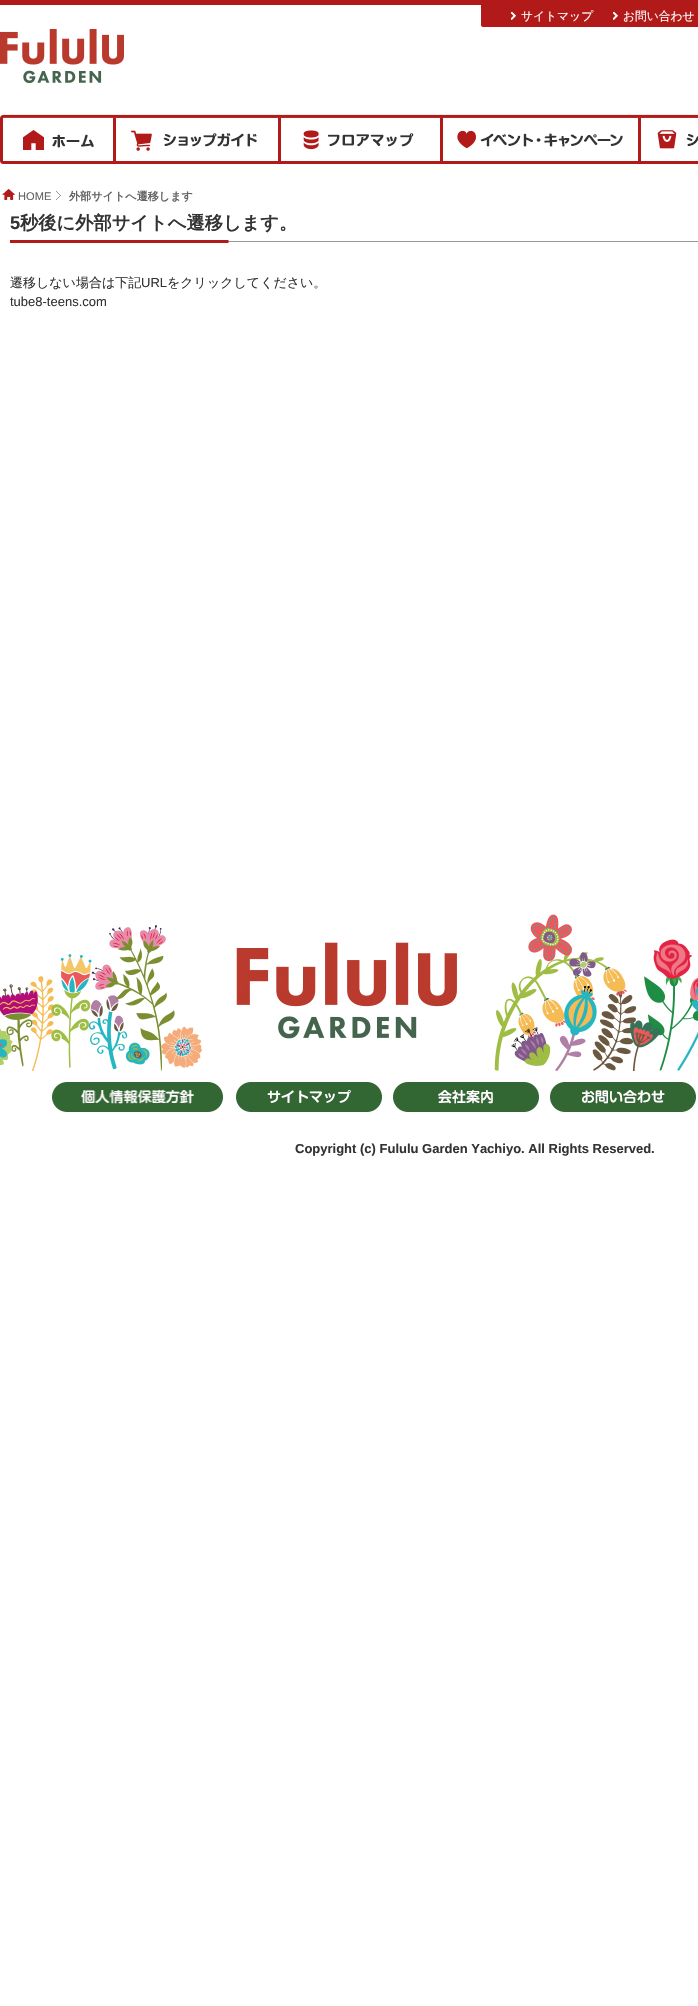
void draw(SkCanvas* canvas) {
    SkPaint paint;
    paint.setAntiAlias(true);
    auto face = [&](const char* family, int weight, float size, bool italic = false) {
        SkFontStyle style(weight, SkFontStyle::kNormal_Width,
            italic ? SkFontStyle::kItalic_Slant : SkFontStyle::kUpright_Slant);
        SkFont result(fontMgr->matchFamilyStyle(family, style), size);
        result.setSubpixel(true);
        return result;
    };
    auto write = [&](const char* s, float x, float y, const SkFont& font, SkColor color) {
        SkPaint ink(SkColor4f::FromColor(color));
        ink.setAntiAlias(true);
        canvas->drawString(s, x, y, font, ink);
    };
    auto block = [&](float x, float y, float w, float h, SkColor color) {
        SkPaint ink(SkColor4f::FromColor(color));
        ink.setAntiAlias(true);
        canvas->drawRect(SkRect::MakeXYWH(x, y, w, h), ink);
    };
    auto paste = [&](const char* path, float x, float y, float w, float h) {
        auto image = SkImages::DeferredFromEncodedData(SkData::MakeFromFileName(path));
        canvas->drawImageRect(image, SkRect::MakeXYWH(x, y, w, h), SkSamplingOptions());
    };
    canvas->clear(SK_ColorWHITE);
    block(0, 0, 698, 5, SkColorSetRGB(178, 25, 25));
    paint.setColor(SkColorSetRGB(178, 25, 25));
    canvas->drawPath(SkPathBuilder().moveTo(481, 5).lineTo(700, 5).lineTo(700, 25).cubicTo(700, 26, 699, 27, 698, 27).lineTo(483, 27).cubicTo(482, 27, 481, 26, 481, 25).close().detach(), paint);
    paste("pic1.png", 511, 12, 5, 8);
    auto kFont1 = face("WenQuanYi Zen Hei", 500, 11.75f);
    write("サイトマップ", 521, 20, kFont1, SK_ColorWHITE);
    paste("pic1.png", 613, 12, 5, 8);
    write("お問い合わせ", 623, 20, kFont1, SK_ColorWHITE);
    paste("pic2.png", 0, 29, 124, 54);
    paste("pic3.png", 0, 114, 113, 50);
    paste("pic4.png", 113, 114, 165, 50);
    paste("pic5.png", 278, 114, 165, 50);
    paste("pic6.png", 443, 114, 195, 50);
    paste("pic7.png", 638, 114, 60, 50);
    paste("pic8.png", 2, 189, 13, 11);
    auto kFont2 = face("Liberation Sans", 400, 11.1f);
    write("HOME", 18, 200, kFont2, SkColorSetRGB(98, 98, 98));
    paste("pic9.png", 56, 191, 5, 9);
    auto kFont3 = face("WenQuanYi Zen Hei", 700, 11.1f);
    write("外部サイトへ遷移します", 69, 200, kFont3, SkColorSetRGB(98, 98, 98));
    paste("pic10.png", 10, 240, 688, 3);
    auto kFont4 = face("Liberation Sans", 700, 18.25f);
    write("5", 10, 229, kFont4, SkColorSetRGB(51, 51, 51));
    auto kFont5 = face("WenQuanYi Zen Hei", 700, 18.25f);
    write("秒後に外部サイトへ遷移します。", 20, 229, kFont5, SkColorSetRGB(51, 51, 51));
    auto kFont6 = face("WenQuanYi Zen Hei", 500, 13);
    write("遷移しない場合は下記", 10, 287, kFont6, SkColorSetRGB(51, 51, 51));
    auto kFont7 = face("Liberation Sans", 400, 13);
    write("URL", 141, 287, kFont7, SkColorSetRGB(51, 51, 51));
    write("をクリックしてください。", 167, 287, kFont6, SkColorSetRGB(51, 51, 51));
    write("tube8-teens.com", 10, 306, kFont7, SkColorSetRGB(51, 51, 51));
    paste("pic11.png", 0, 914, 698, 158);
    paste("pic12.png", 52, 1082, 171, 30);
    paste("pic13.png", 236, 1082, 146, 30);
    paste("pic14.png", 393, 1082, 146, 30);
    paste("pic15.png", 550, 1082, 146, 30);
    auto kFont8 = face("Liberation Sans", 700, 13);
    write("Copyright (c) Fululu Garden Yachiyo. All Rights Reserved.", 295, 1153, kFont8, SkColorSetRGB(51, 51, 51));
}
